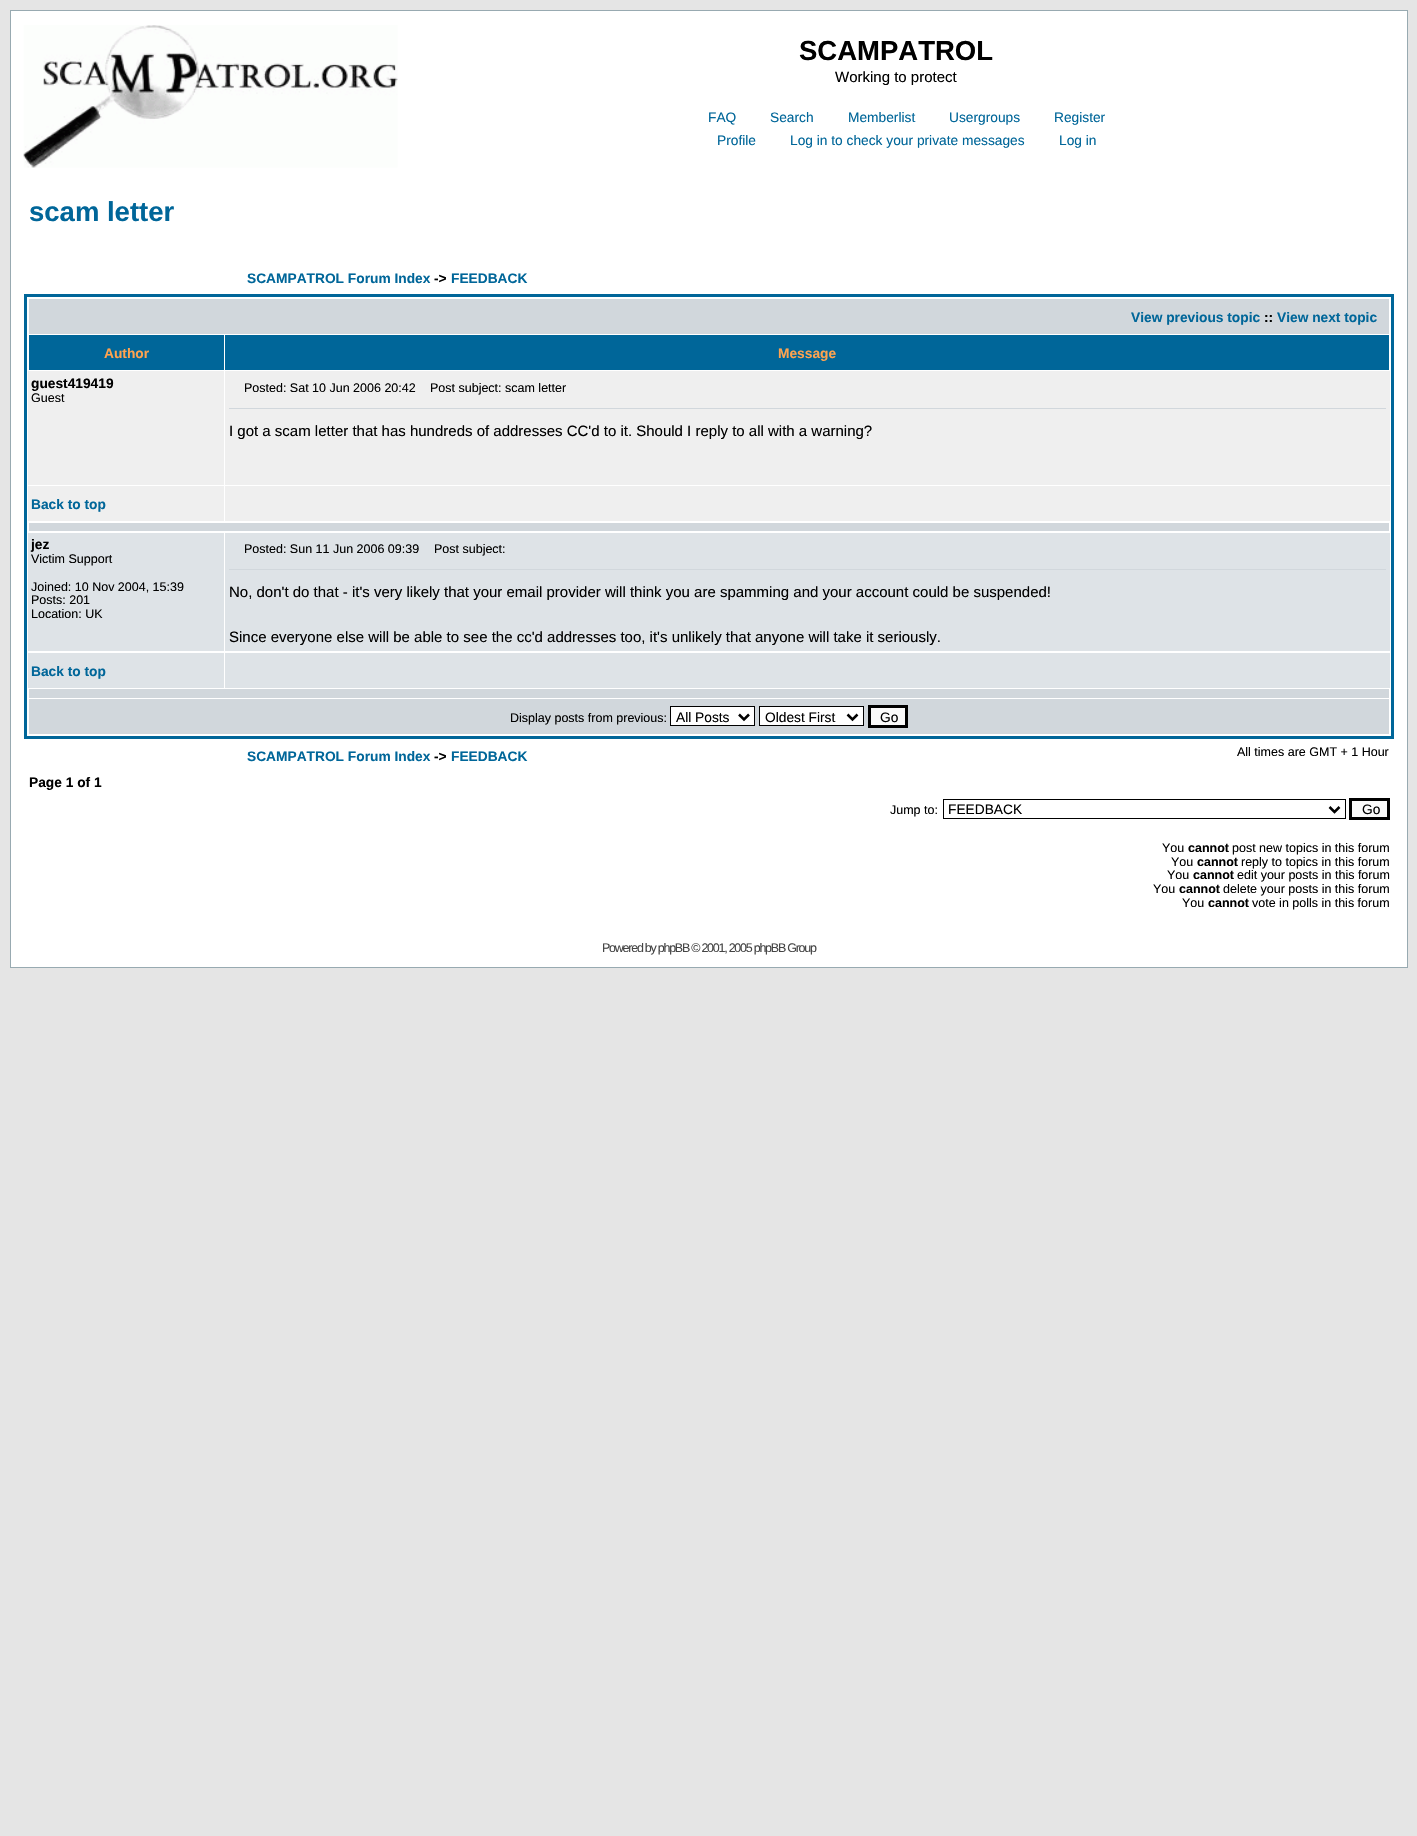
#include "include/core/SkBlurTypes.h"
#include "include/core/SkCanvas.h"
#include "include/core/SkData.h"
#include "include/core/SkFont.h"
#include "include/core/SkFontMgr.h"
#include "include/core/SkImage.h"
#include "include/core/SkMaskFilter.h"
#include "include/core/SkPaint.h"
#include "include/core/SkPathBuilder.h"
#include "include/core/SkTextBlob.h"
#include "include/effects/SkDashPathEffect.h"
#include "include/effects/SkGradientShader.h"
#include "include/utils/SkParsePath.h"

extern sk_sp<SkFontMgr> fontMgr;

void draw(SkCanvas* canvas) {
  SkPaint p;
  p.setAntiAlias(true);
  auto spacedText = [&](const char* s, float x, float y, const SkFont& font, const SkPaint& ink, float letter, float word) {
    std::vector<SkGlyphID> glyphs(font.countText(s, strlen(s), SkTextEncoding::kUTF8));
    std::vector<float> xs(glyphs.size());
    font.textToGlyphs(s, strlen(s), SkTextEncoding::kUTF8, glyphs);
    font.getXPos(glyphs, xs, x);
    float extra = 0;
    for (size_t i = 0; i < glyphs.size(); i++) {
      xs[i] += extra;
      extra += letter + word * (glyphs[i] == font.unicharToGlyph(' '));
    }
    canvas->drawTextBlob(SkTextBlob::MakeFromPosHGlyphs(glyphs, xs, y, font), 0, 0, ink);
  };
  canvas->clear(SkColorSetRGB(229, 229, 229));
  p.setColor(SK_ColorWHITE);
  canvas->drawRect(SkRect::MakeLTRB(10.5f, 10.5f, 1407.5f, 967.5f), p);
  p.setStyle(SkPaint::kStroke_Style);
  p.setStrokeWidth(1);
  p.setColor(SkColorSetRGB(152, 170, 177));
  canvas->drawRect(SkRect::MakeLTRB(10.5f, 10.5f, 1407.5f, 967.5f), p);
  canvas->drawImageRect(SkImages::DeferredFromEncodedData(SkData::MakeFromFileName("images/1.png")), SkRect::MakeLTRB(23, 25, 398, 168), SkSamplingOptions());
  p.setStrokeWidth(3);
  p.setColor(SkColorSetRGB(0, 102, 153));
  canvas->drawRect(SkRect::MakeLTRB(25.5f, 295.5f, 1392.5f, 737.5f), p);
  p.setStyle(SkPaint::kFill_Style);
  p.setColor(SkColorSetRGB(209, 215, 220));
  canvas->drawRect(SkRect::MakeLTRB(29, 299, 1389, 334), p);
  p.setColor(SkColorSetRGB(0, 102, 153));
  canvas->drawRect(SkRect::MakeLTRB(29, 335, 224, 370), p);
  canvas->drawRect(SkRect::MakeLTRB(225, 335, 1389, 370), p);
  p.setColor(SkColorSetRGB(239, 239, 239));
  canvas->drawRect(SkRect::MakeLTRB(28, 371, 224, 485), p);
  canvas->drawRect(SkRect::MakeLTRB(225, 371, 1390, 485), p);
  p.setColor(SkColorSetRGB(209, 215, 220));
  canvas->drawRect(SkRect::MakeLTRB(229, 408, 1386, 409), p);
  p.setColor(SkColorSetRGB(239, 239, 239));
  canvas->drawRect(SkRect::MakeLTRB(28, 486, 224, 521), p);
  canvas->drawRect(SkRect::MakeLTRB(225, 486, 1390, 521), p);
  p.setColor(SkColorSetRGB(209, 215, 220));
  canvas->drawRect(SkRect::MakeLTRB(29, 523, 1389, 531), p);
  p.setColor(SkColorSetRGB(222, 227, 231));
  canvas->drawRect(SkRect::MakeLTRB(28, 533, 224, 651), p);
  canvas->drawRect(SkRect::MakeLTRB(225, 533, 1390, 651), p);
  p.setColor(SkColorSetRGB(209, 215, 220));
  canvas->drawRect(SkRect::MakeLTRB(229, 569, 1386, 570), p);
  p.setColor(SkColorSetRGB(222, 227, 231));
  canvas->drawRect(SkRect::MakeLTRB(28, 653, 224, 688), p);
  canvas->drawRect(SkRect::MakeLTRB(225, 653, 1390, 688), p);
  p.setColor(SkColorSetRGB(209, 215, 220));
  canvas->drawRect(SkRect::MakeLTRB(29, 689, 1389, 698), p);
  canvas->drawRect(SkRect::MakeLTRB(29, 699, 1389, 734), p);
  p.setColor(SK_ColorWHITE);
  canvas->drawRect(SkRect::MakeLTRB(670.5f, 706.5f, 754.5f, 725.5f), p);
  p.setStyle(SkPaint::kStroke_Style);
  p.setStrokeWidth(1);
  p.setColor(SK_ColorBLACK);
  canvas->drawRect(SkRect::MakeLTRB(670.5f, 706.5f, 754.5f, 725.5f), p);
  p.setStrokeWidth(2.5f);
  canvas->drawPath(SkPathBuilder().moveTo(739, 714.5f).lineTo(744, 719.5f).lineTo(749, 714.5f).detach(), p);
  p.setStyle(SkPaint::kFill_Style);
  p.setColor(SK_ColorWHITE);
  canvas->drawRect(SkRect::MakeLTRB(759.5f, 706.5f, 863.5f, 725.5f), p);
  p.setStyle(SkPaint::kStroke_Style);
  p.setStrokeWidth(1);
  p.setColor(SK_ColorBLACK);
  canvas->drawRect(SkRect::MakeLTRB(759.5f, 706.5f, 863.5f, 725.5f), p);
  p.setStrokeWidth(2.5f);
  canvas->drawPath(SkPathBuilder().moveTo(847.5f, 714.5f).lineTo(852.5f, 719.5f).lineTo(857.5f, 714.5f).detach(), p);
  p.setStyle(SkPaint::kFill_Style);
  p.setColor(SkColorSetRGB(250, 250, 250));
  canvas->drawRect(SkRect::MakeLTRB(869.5f, 706.5f, 906.5f, 726.5f), p);
  p.setStyle(SkPaint::kStroke_Style);
  p.setStrokeWidth(3);
  p.setColor(SK_ColorBLACK);
  canvas->drawRect(SkRect::MakeLTRB(869.5f, 706.5f, 906.5f, 726.5f), p);
  p.setStrokeWidth(1);
  canvas->drawRect(SkRect::MakeLTRB(943.5f, 799.5f, 1345.5f, 818.5f), p);
  p.setStrokeWidth(2.5f);
  canvas->drawPath(SkPathBuilder().moveTo(1329.5f, 807).lineTo(1334.5f, 812).lineTo(1339.5f, 807).detach(), p);
  p.setStyle(SkPaint::kFill_Style);
  p.setColor(SkColorSetRGB(250, 250, 250));
  canvas->drawRect(SkRect::MakeLTRB(1350.5f, 799.5f, 1388.5f, 818.5f), p);
  p.setStyle(SkPaint::kStroke_Style);
  p.setStrokeWidth(3);
  p.setColor(SK_ColorBLACK);
  canvas->drawRect(SkRect::MakeLTRB(1350.5f, 799.5f, 1388.5f, 818.5f), p);
  SkFont font1(fontMgr->matchFamilyStyle("Liberation Sans", SkFontStyle::Bold()), 27.5f);
  font1.setSubpixel(true);
  p.setStyle(SkPaint::kFill_Style);
  canvas->drawString("SCAMPATROL", 799, 60, font1, p);
  SkFont font2(fontMgr->matchFamilyStyle("Liberation Sans", SkFontStyle::Normal()), 15);
  font2.setSubpixel(true);
  canvas->drawString("Working to protect", 835, 82, font2, p);
  SkFont font3(fontMgr->matchFamilyStyle("Liberation Sans", SkFontStyle::Normal()), 13.75f);
  font3.setSubpixel(true);
  p.setColor(SkColorSetRGB(0, 102, 153));
  canvas->drawString("FAQ", 708, 122, font3, p);
  canvas->drawString("Search", 770, 122, font3, p);
  canvas->drawString("Memberlist", 848, 122, font3, p);
  canvas->drawString("Usergroups", 949, 122, font3, p);
  canvas->drawString("Register", 1054, 122, font3, p);
  canvas->drawString("Profile", 717, 145, font3, p);
  canvas->drawString("Log in to check your private messages", 790, 145, font3, p);
  canvas->drawString("Log in", 1059, 145, font3, p);
  canvas->drawString("scam letter", 29, 221, font1, p);
  SkFont font4(fontMgr->matchFamilyStyle("Liberation Sans", SkFontStyle::Bold()), 13.75f);
  font4.setSubpixel(true);
  canvas->drawString("SCAMPATROL Forum Index", 247, 283, font4, p);
  p.setColor(SK_ColorBLACK);
  canvas->drawString("->", 434, 283, font4, p);
  p.setColor(SkColorSetRGB(0, 102, 153));
  canvas->drawString("FEEDBACK", 451, 283, font4, p);
  canvas->drawString("View previous topic", 1131, 322, font4, p);
  p.setColor(SK_ColorBLACK);
  canvas->drawString("::", 1264, 322, font4, p);
  p.setColor(SkColorSetRGB(0, 102, 153));
  canvas->drawString("View next topic", 1277, 322, font4, p);
  p.setColor(SkColorSetRGB(255, 163, 79));
  canvas->drawString("Author", 104, 358, font4, p);
  canvas->drawString("Message", 778, 358, font4, p);
  p.setColor(SK_ColorBLACK);
  canvas->drawString("guest419419", 31, 388, font4, p);
  SkFont font5(fontMgr->matchFamilyStyle("Liberation Sans", SkFontStyle::Normal()), 12.5f);
  font5.setSubpixel(true);
  canvas->drawString("Guest", 31, 402, font5, p);
  canvas->drawString("Posted: Sat 10 Jun 2006 20:42", 244, 392, font5, p);
  canvas->drawString("Post subject: scam letter", 430, 392, font5, p);
  canvas->drawString("I got a scam letter that has hundreds of addresses CC'd to it. Should I reply to all with a warning?", 229, 436, font2, p);
  p.setColor(SkColorSetRGB(0, 102, 153));
  canvas->drawString("Back to top", 31, 509, font4, p);
  p.setColor(SK_ColorBLACK);
  canvas->drawString("jez", 31, 549, font4, p);
  canvas->drawString("Victim Support", 31, 563, font5, p);
  canvas->drawString("Joined: 10 Nov 2004, 15:39", 31, 591, font5, p);
  canvas->drawString("Posts: 201", 31, 604, font5, p);
  canvas->drawString("Location: UK", 31, 618, font5, p);
  canvas->drawString("Posted: Sun 11 Jun 2006 09:39", 244, 553, font5, p);
  canvas->drawString("Post subject:", 434, 553, font5, p);
  canvas->drawString("No, don't do that - it's very likely that your email provider will think you are spamming and your account could be suspended!", 229, 597, font2, p);
  canvas->drawString("Since everyone else will be able to see the cc'd addresses too, it's unlikely that anyone will take it seriously.", 229, 642, font2, p);
  p.setColor(SkColorSetRGB(0, 102, 153));
  canvas->drawString("Back to top", 31, 676, font4, p);
  p.setColor(SK_ColorBLACK);
  canvas->drawString("Display posts from previous:", 510, 722, font5, p);
  canvas->drawString("All Posts", 676, 722, font3, p);
  canvas->drawString("Oldest First", 765, 722, font3, p);
  canvas->drawString("Go", 880, 722, font3, p);
  p.setColor(SkColorSetRGB(0, 102, 153));
  canvas->drawString("SCAMPATROL Forum Index", 247, 761, font4, p);
  p.setColor(SK_ColorBLACK);
  canvas->drawString("->", 434, 761, font4, p);
  p.setColor(SkColorSetRGB(0, 102, 153));
  canvas->drawString("FEEDBACK", 451, 761, font4, p);
  p.setColor(SK_ColorBLACK);
  canvas->drawString("All times are GMT + 1 Hour", 1237, 756, font5, p);
  canvas->drawString("Page 1 of 1", 29, 787, font4, p);
  canvas->drawString("Jump to:", 890, 814, font5, p);
  canvas->drawString("FEEDBACK", 948, 814, font3, p);
  canvas->drawString("Go", 1362, 814, font3, p);
  canvas->drawString("You", 1162, 852, font5, p);
  SkFont font6(fontMgr->matchFamilyStyle("Liberation Sans", SkFontStyle::Bold()), 12.5f);
  font6.setSubpixel(true);
  canvas->drawString("cannot", 1188, 852, font6, p);
  canvas->drawString("post new topics in this forum", 1232, 852, font5, p);
  canvas->drawString("You", 1171, 866, font5, p);
  canvas->drawString("cannot", 1197, 866, font6, p);
  canvas->drawString("reply to topics in this forum", 1241, 866, font5, p);
  canvas->drawString("You", 1167, 879, font5, p);
  canvas->drawString("cannot", 1193, 879, font6, p);
  canvas->drawString("edit your posts in this forum", 1237, 879, font5, p);
  canvas->drawString("You", 1153, 893, font5, p);
  canvas->drawString("cannot", 1179, 893, font6, p);
  canvas->drawString("delete your posts in this forum", 1223, 893, font5, p);
  canvas->drawString("You", 1182, 907, font5, p);
  canvas->drawString("cannot", 1208, 907, font6, p);
  canvas->drawString("vote in polls in this forum", 1252, 907, font5, p);
  p.setColor(SkColorSetRGB(68, 68, 68));
  spacedText("Powered by phpBB © 2001, 2005 phpBB Group", 602, 952, font5, p, -1.25f, 0);
}
